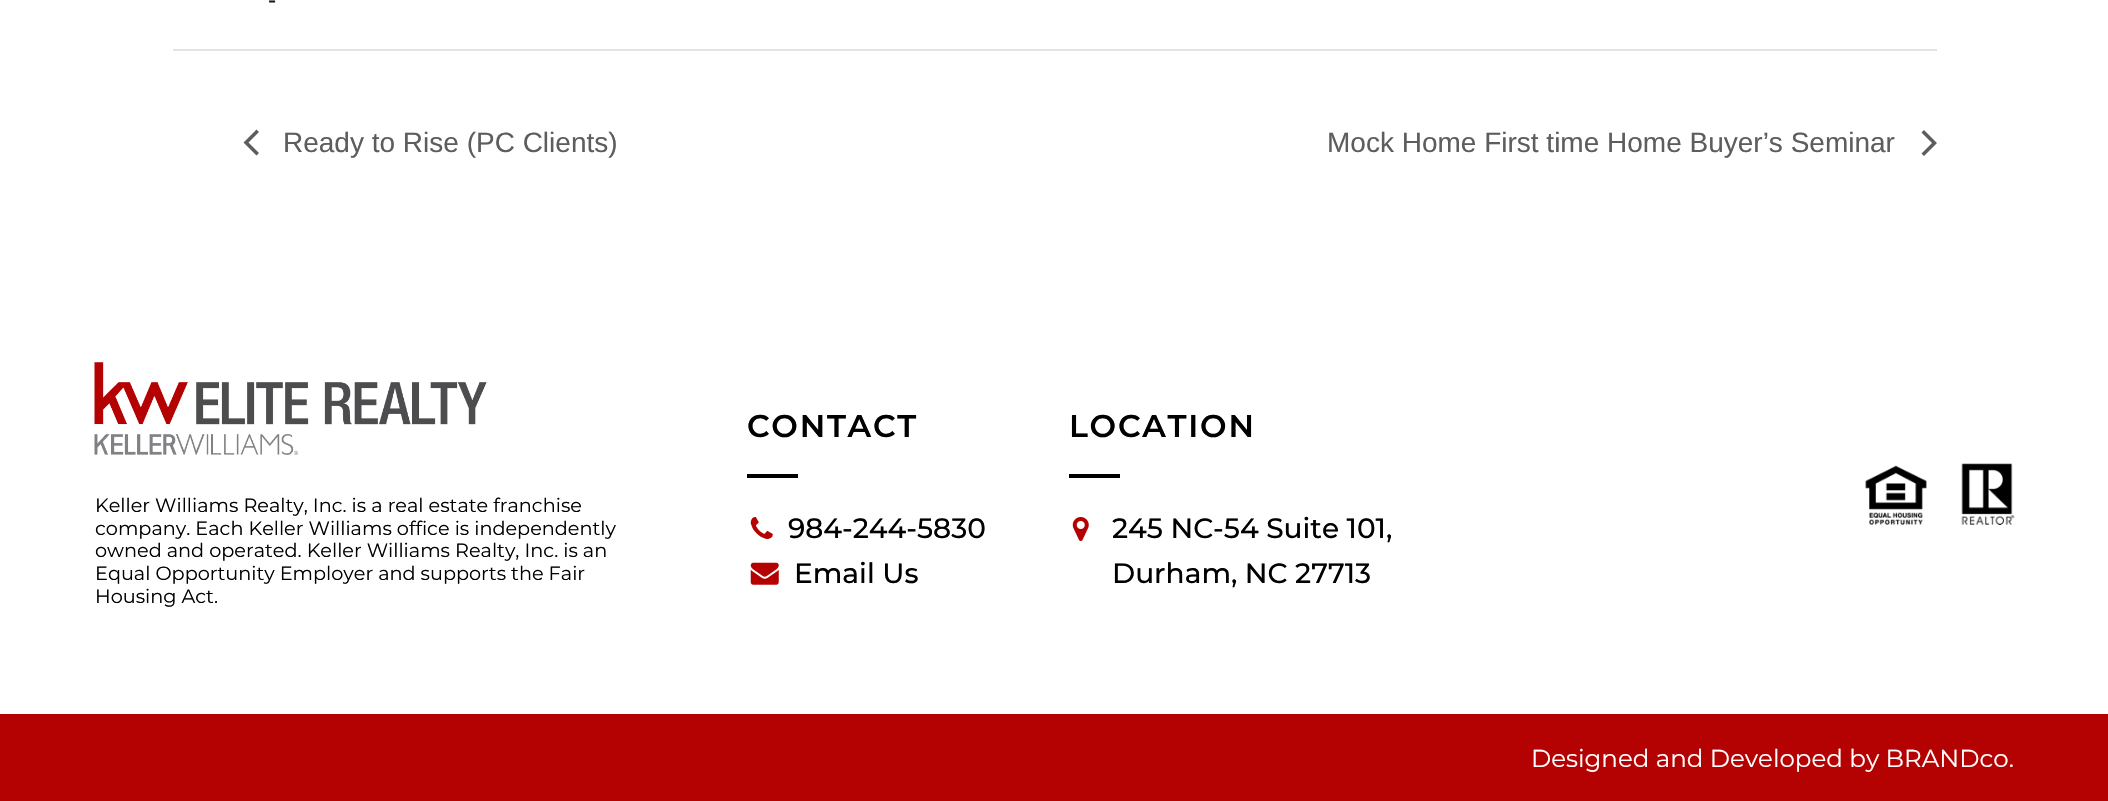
#include "include/core/SkBlurTypes.h"
#include "include/core/SkCanvas.h"
#include "include/core/SkData.h"
#include "include/core/SkFont.h"
#include "include/core/SkFontMgr.h"
#include "include/core/SkImage.h"
#include "include/core/SkMaskFilter.h"
#include "include/core/SkPaint.h"
#include "include/core/SkPathBuilder.h"
#include "include/core/SkTextBlob.h"
#include "include/effects/SkDashPathEffect.h"
#include "include/effects/SkGradientShader.h"
#include "include/utils/SkParsePath.h"

extern sk_sp<SkFontMgr> fontMgr;

void draw(SkCanvas* canvas) {
  SkPaint p;
  p.setAntiAlias(true);
  auto spacedText = [&](const char* s, float x, float y, const SkFont& font, const SkPaint& ink, float letter, float word) {
    std::vector<SkGlyphID> glyphs(font.countText(s, strlen(s), SkTextEncoding::kUTF8));
    std::vector<float> xs(glyphs.size());
    font.textToGlyphs(s, strlen(s), SkTextEncoding::kUTF8, glyphs);
    font.getXPos(glyphs, xs, x);
    float extra = 0;
    for (size_t i = 0; i < glyphs.size(); i++) {
      xs[i] += extra;
      extra += letter + word * (glyphs[i] == font.unicharToGlyph(' '));
    }
    canvas->drawTextBlob(SkTextBlob::MakeFromPosHGlyphs(glyphs, xs, y, font), 0, 0, ink);
  };
  canvas->clear(SK_ColorWHITE);
  p.setColor(SkColorSetRGB(228, 228, 228));
  canvas->drawRect(SkRect::MakeLTRB(173, 49, 1937, 51), p);
  p.setColor(SkColorSetRGB(93, 93, 93));
  canvas->drawPath(SkPathBuilder().moveTo(259, 153).lineTo(256.5f, 155.5f).lineTo(243.5f, 142.5f).lineTo(256.5f, 129.5f).lineTo(259, 132).lineTo(248.5f, 142.5f).close().detach(), p);
  canvas->drawPath(SkPathBuilder().moveTo(1921.5f, 132.5f).lineTo(1924, 130).lineTo(1937, 143).lineTo(1924, 156).lineTo(1921.5f, 153.5f).lineTo(1932, 143).close().detach(), p);
  canvas->drawImageRect(SkImages::DeferredFromEncodedData(SkData::MakeFromFileName("images/1.png")), SkRect::MakeLTRB(94, 362, 487, 455), SkSamplingOptions());
  p.setColor(SK_ColorBLACK);
  canvas->drawRect(SkRect::MakeLTRB(747, 474, 798, 478), p);
  canvas->drawImageRect(SkImages::DeferredFromEncodedData(SkData::MakeFromFileName("images/2.png")), SkRect::MakeLTRB(750, 517, 773, 539), SkSamplingOptions());
  canvas->drawImageRect(SkImages::DeferredFromEncodedData(SkData::MakeFromFileName("images/3.png")), SkRect::MakeLTRB(750, 562, 779, 585), SkSamplingOptions());
  canvas->drawRect(SkRect::MakeLTRB(1069, 474, 1120, 478), p);
  canvas->drawImageRect(SkImages::DeferredFromEncodedData(SkData::MakeFromFileName("images/4.png")), SkRect::MakeLTRB(1072, 517, 1089, 541), SkSamplingOptions());
  canvas->drawImageRect(SkImages::DeferredFromEncodedData(SkData::MakeFromFileName("images/5.png")), SkRect::MakeLTRB(1865, 465, 1927, 525), SkSamplingOptions());
  canvas->drawImageRect(SkImages::DeferredFromEncodedData(SkData::MakeFromFileName("images/6.png")), SkRect::MakeLTRB(1961, 463, 2015, 525), SkSamplingOptions());
  p.setColor(SkColorSetRGB(180, 1, 1));
  canvas->drawRect(SkRect::MakeLTRB(0, 714, 2108, 801), p);
  SkFont font1(fontMgr->matchFamilyStyle("Liberation Sans", SkFontStyle::Normal()), 24.5f);
  font1.setSubpixel(true);
  p.setColor(SkColorSetRGB(20, 24, 39));
  canvas->drawString("-", 268, 8, font1, p);
  SkFont font2(fontMgr->matchFamilyStyle("Liberation Sans", SkFontStyle::Normal()), 28);
  font2.setSubpixel(true);
  p.setColor(SkColorSetRGB(93, 93, 93));
  canvas->drawString("Ready to Rise (PC Clients)", 283, 152, font2, p);
  canvas->drawString("Mock Home First time Home Buyer’s Seminar", 1327, 152, font2, p);
  SkFont font3(fontMgr->matchFamilyStyle("Montserrat", SkFontStyle::Normal()), 19.25f);
  font3.setSubpixel(true);
  p.setColor(SK_ColorBLACK);
  canvas->drawString("Keller Williams Realty, Inc. is a real estate franchise", 95, 512, font3, p);
  canvas->drawString("company. Each Keller Williams office is independently", 95, 535, font3, p);
  canvas->drawString("owned and operated. Keller Williams Realty, Inc. is an", 95, 557, font3, p);
  canvas->drawString("Equal Opportunity Employer and supports the Fair", 95, 580, font3, p);
  canvas->drawString("Housing Act.", 95, 603, font3, p);
  SkFont font4(fontMgr->matchFamilyStyle("Montserrat", SkFontStyle(600, SkFontStyle::kNormal_Width, SkFontStyle::kUpright_Slant)), 31.5f);
  font4.setSubpixel(true);
  spacedText("CONTACT", 747, 437, font4, p, 1.75f, 0);
  SkFont font5(fontMgr->matchFamilyStyle("Montserrat", SkFontStyle(500, SkFontStyle::kNormal_Width, SkFontStyle::kUpright_Slant)), 28);
  font5.setSubpixel(true);
  canvas->drawString("984-244-5830", 788, 538, font5, p);
  canvas->drawString("Email Us", 794, 583, font5, p);
  spacedText("LOCATION", 1069, 437, font4, p, 1.75f, 0);
  canvas->drawString("245 NC-54 Suite 101,", 1112, 538, font5, p);
  canvas->drawString("Durham, NC 27713", 1112, 583, font5, p);
  SkFont font6(fontMgr->matchFamilyStyle("Montserrat", SkFontStyle::Normal()), 24.5f);
  font6.setSubpixel(true);
  p.setColor(SK_ColorWHITE);
  canvas->drawString("Designed and Developed by BRANDco.", 1531, 767, font6, p);
}
